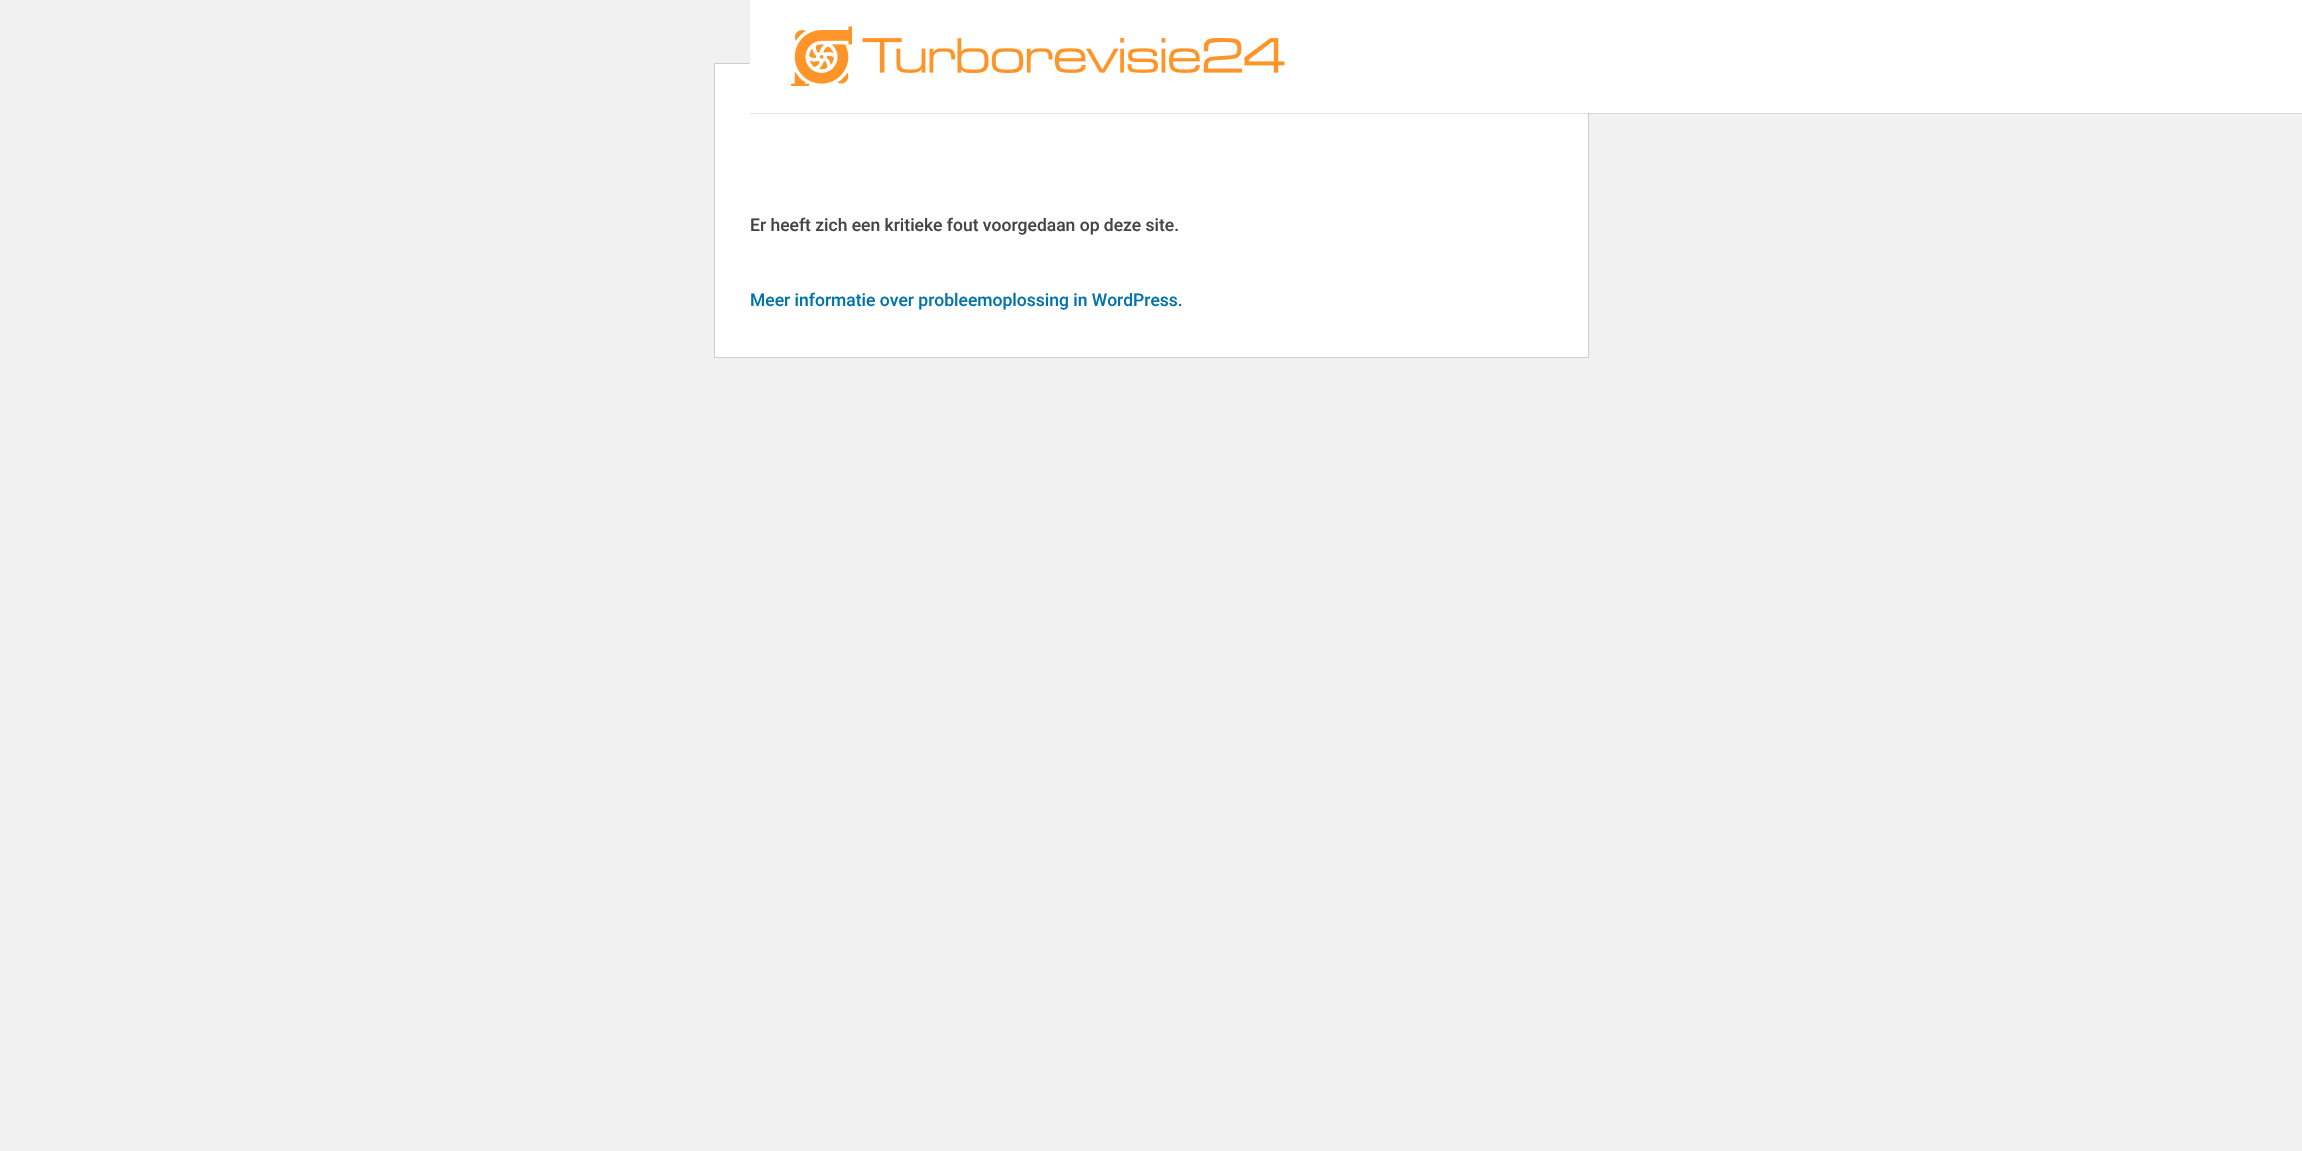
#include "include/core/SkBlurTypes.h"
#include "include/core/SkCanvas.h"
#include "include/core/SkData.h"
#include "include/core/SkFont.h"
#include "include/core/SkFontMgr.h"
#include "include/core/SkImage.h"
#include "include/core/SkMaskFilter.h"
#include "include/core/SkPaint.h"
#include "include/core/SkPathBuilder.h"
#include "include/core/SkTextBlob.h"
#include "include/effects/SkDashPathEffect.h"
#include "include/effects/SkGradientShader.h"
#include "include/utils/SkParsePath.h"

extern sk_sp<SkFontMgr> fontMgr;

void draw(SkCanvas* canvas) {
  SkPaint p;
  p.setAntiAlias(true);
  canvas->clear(SkColorSetRGB(241, 241, 241));
  p.setColor(SK_ColorWHITE);
  canvas->drawRect(SkRect::MakeLTRB(714.5f, 63.5f, 1588.5f, 357.5f), p);
  p.setStyle(SkPaint::kStroke_Style);
  p.setStrokeWidth(1);
  p.setColor(SkColorSetRGB(204, 208, 212));
  canvas->drawRect(SkRect::MakeLTRB(714.5f, 63.5f, 1588.5f, 357.5f), p);
  p.setStyle(SkPaint::kFill_Style);
  p.setColor(SkColorSetARGB(26, 0, 0, 0));
  canvas->drawPath(SkPathBuilder().moveTo(750, 112).lineTo(750, 114).lineTo(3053, 114).lineTo(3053, 1).lineTo(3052, 1).lineTo(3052, 112).close().detach(), p);
  p.setColor(SK_ColorWHITE);
  canvas->drawRect(SkRect::MakeLTRB(750, 0, 2302, 113), p);
  canvas->drawImageRect(SkImages::DeferredFromEncodedData(SkData::MakeFromFileName("images/1.png")), SkRect::MakeLTRB(791, 26, 1285, 86), SkSamplingOptions());
  SkFont font1(fontMgr->matchFamilyStyle("Roboto", SkFontStyle(500, SkFontStyle::kNormal_Width, SkFontStyle::kUpright_Slant)), 17.5f);
  font1.setSubpixel(true);
  p.setColor(SkColorSetRGB(68, 68, 68));
  canvas->drawString("Er heeft zich een kritieke fout voorgedaan op deze site.", 750, 231, font1, p);
  p.setColor(SkColorSetRGB(0, 115, 170));
  canvas->drawString("Meer informatie over probleemoplossing in WordPress.", 750, 306, font1, p);
}
